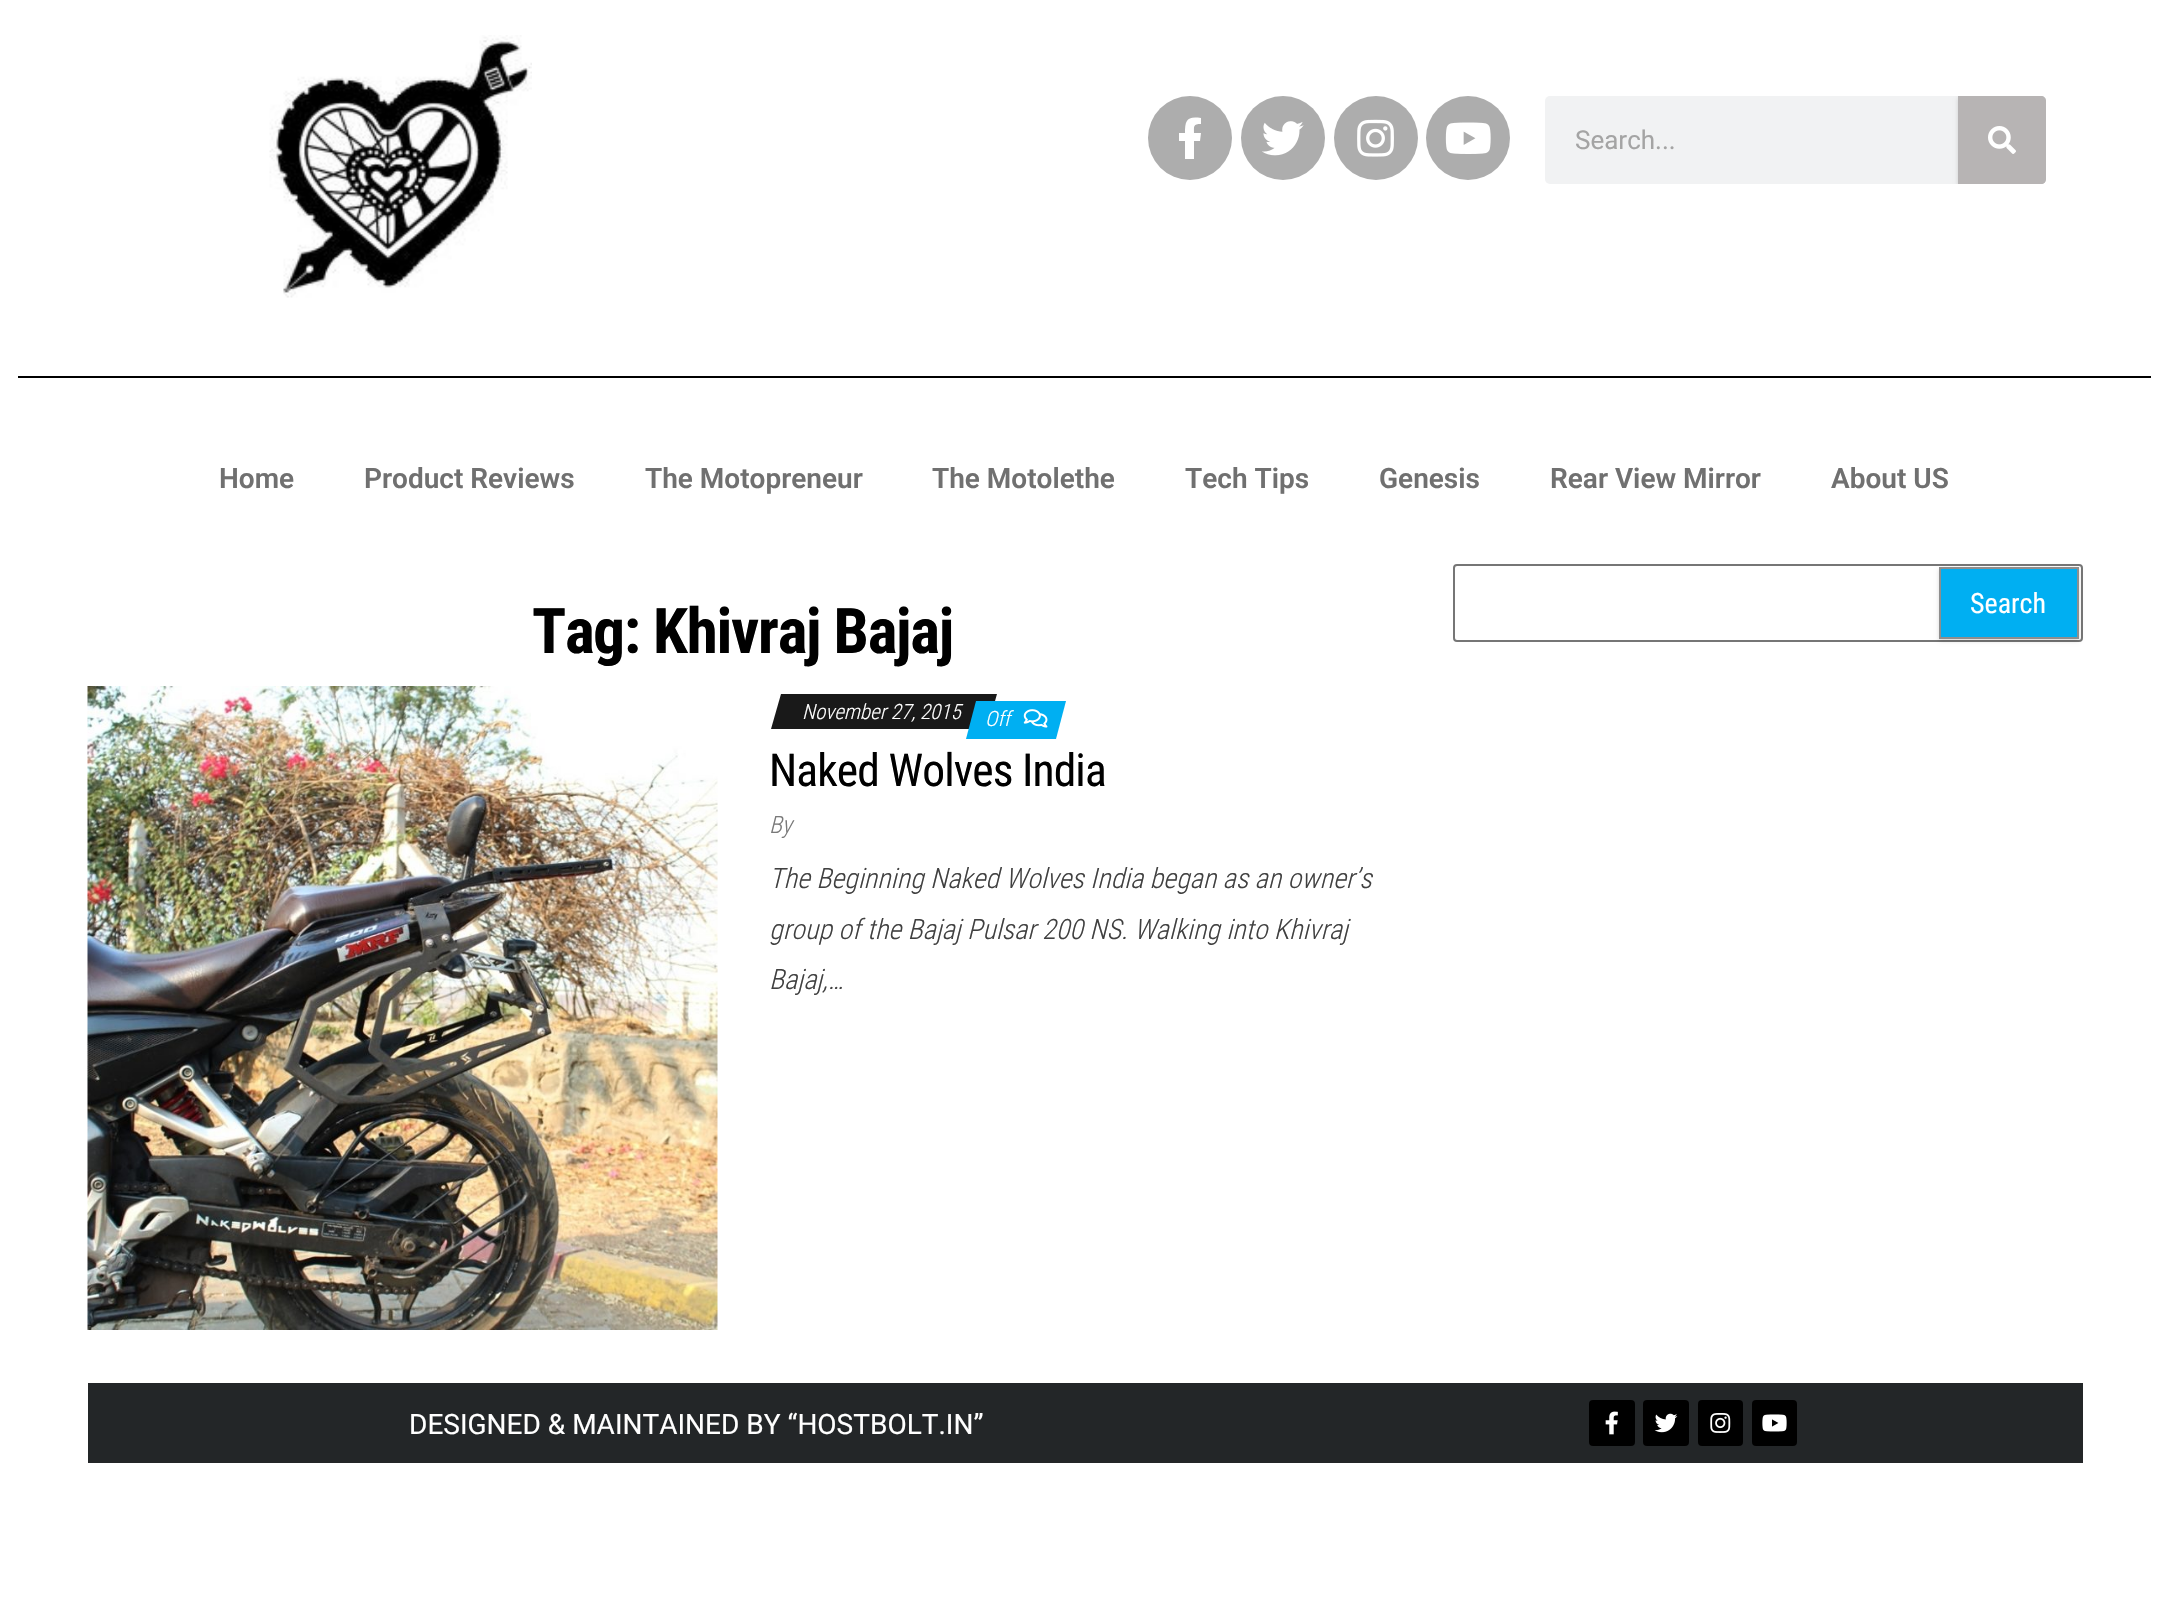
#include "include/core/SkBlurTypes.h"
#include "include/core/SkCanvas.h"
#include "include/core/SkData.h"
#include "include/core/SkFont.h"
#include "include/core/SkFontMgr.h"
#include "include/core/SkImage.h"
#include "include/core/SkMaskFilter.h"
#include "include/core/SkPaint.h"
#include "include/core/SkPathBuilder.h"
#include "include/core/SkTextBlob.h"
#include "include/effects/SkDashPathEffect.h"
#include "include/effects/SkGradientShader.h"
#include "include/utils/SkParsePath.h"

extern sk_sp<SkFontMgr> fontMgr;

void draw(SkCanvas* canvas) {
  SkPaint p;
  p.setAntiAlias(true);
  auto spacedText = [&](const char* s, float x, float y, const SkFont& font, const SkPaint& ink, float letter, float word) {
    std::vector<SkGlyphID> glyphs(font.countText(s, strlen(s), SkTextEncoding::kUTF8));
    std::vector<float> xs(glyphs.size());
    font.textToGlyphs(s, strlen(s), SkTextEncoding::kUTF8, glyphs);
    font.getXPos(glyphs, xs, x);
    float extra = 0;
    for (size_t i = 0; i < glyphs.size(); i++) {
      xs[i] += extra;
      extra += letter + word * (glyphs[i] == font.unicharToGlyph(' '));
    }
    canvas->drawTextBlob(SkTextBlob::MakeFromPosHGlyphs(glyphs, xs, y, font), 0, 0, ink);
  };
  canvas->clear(SK_ColorWHITE);
  canvas->drawImageRect(SkImages::DeferredFromEncodedData(SkData::MakeFromFileName("images/1.png")), SkRect::MakeLTRB(269, 35, 532, 298), SkSamplingOptions());
  p.setColor(SkColorSetRGB(173, 173, 173));
  canvas->drawCircle(1190, 138, 42, p);
  p.setColor(SK_ColorWHITE);
  canvas->drawPath(SkPathBuilder().moveTo(1200, 141).lineTo(1194, 141).lineTo(1194, 159).lineTo(1185, 159).lineTo(1185, 141).lineTo(1179, 141).lineTo(1179, 133).lineTo(1185, 133).cubicTo(1185, 120, 1187, 116, 1201, 118).lineTo(1201, 124).cubicTo(1193, 124, 1194, 126, 1194, 133).lineTo(1201, 133).close().detach(), p);
  p.setColor(SkColorSetRGB(173, 173, 173));
  canvas->drawCircle(1283, 138, 42, p);
  canvas->drawImageRect(SkImages::DeferredFromEncodedData(SkData::MakeFromFileName("images/2.png")), SkRect::MakeLTRB(1262, 121, 1304, 156), SkSamplingOptions());
  canvas->drawCircle(1376, 138, 42, p);
  canvas->drawImageRect(SkImages::DeferredFromEncodedData(SkData::MakeFromFileName("images/3.png")), SkRect::MakeLTRB(1357, 119, 1394, 157), SkSamplingOptions());
  canvas->drawCircle(1468, 138, 42, p);
  canvas->drawImageRect(SkImages::DeferredFromEncodedData(SkData::MakeFromFileName("images/4.png")), SkRect::MakeLTRB(1445, 122, 1491, 154), SkSamplingOptions());
  p.setColor(SkColorSetRGB(241, 242, 243));
  canvas->drawRoundRect(SkRect::MakeLTRB(1545, 96, 2046, 184), 5, 5, p);
  canvas->save();
  canvas->clipPath(SkPathBuilder().moveTo(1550, 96).lineTo(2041, 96).cubicTo(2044, 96, 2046, 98, 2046, 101).lineTo(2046, 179).cubicTo(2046, 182, 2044, 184, 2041, 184).lineTo(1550, 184).cubicTo(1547, 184, 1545, 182, 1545, 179).lineTo(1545, 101).cubicTo(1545, 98, 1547, 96, 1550, 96).close().detach(), true);
  p.setColor(SkColorSetARGB(38, 0, 0, 0));
  p.setMaskFilter(SkMaskFilter::MakeBlur(kNormal_SkBlurStyle, 2));
  canvas->drawRect(SkRect::MakeLTRB(1958, 98, 2046, 186), p);
  p.setMaskFilter(nullptr);
  canvas->restore();
  p.setColor(SkColorSetRGB(183, 180, 180));
  canvas->drawPath(SkPathBuilder().moveTo(1958, 96).lineTo(2041, 96).cubicTo(2044, 96, 2046, 98, 2046, 101).lineTo(2046, 179).cubicTo(2046, 182, 2044, 184, 2041, 184).lineTo(1958, 184).close().detach(), p);
  canvas->drawImageRect(SkImages::DeferredFromEncodedData(SkData::MakeFromFileName("images/5.png")), SkRect::MakeLTRB(1988, 126, 2016, 154), SkSamplingOptions());
  p.setColor(SK_ColorBLACK);
  canvas->drawRect(SkRect::MakeLTRB(18, 376, 2151, 378), p);
  canvas->drawImageRect(SkImages::DeferredFromEncodedData(SkData::MakeFromFileName("images/6.png")), SkRect::MakeLTRB(87, 686, 718, 1330), SkSamplingOptions());
  p.setColor(SkColorSetRGB(25, 25, 25));
  canvas->drawPath(SkPathBuilder().moveTo(781, 694).lineTo(997, 694).lineTo(987, 729).lineTo(771, 729).close().detach(), p);
  p.setColor(SkColorSetRGB(0, 175, 242));
  canvas->drawPath(SkPathBuilder().moveTo(976, 701).lineTo(1066, 701).lineTo(1056, 739).lineTo(966, 739).close().detach(), p);
  canvas->drawImageRect(SkImages::DeferredFromEncodedData(SkData::MakeFromFileName("images/7.png")), SkRect::MakeLTRB(1023, 709, 1048, 728), SkSamplingOptions());
  p.setStyle(SkPaint::kStroke_Style);
  p.setStrokeWidth(2);
  p.setColor(SkColorSetRGB(118, 118, 118));
  canvas->drawRoundRect(SkRect::MakeLTRB(1454, 565, 2082, 641), 3, 3, p);
  p.setStyle(SkPaint::kFill_Style);
  p.setColor(SkColorSetARGB(38, 0, 0, 0));
  p.setMaskFilter(SkMaskFilter::MakeBlur(kNormal_SkBlurStyle, 2));
  canvas->drawRect(SkRect::MakeLTRB(1939, 569, 2079, 641), p);
  p.setMaskFilter(nullptr);
  p.setColor(SkColorSetRGB(0, 175, 242));
  canvas->drawRect(SkRect::MakeLTRB(1940, 568, 2078, 638), p);
  p.setStyle(SkPaint::kStroke_Style);
  p.setColor(SkColorSetRGB(142, 142, 142));
  canvas->drawRect(SkRect::MakeLTRB(1940, 568, 2078, 638), p);
  p.setStyle(SkPaint::kFill_Style);
  p.setColor(SkColorSetRGB(35, 38, 40));
  canvas->drawRect(SkRect::MakeLTRB(88, 1383, 2083, 1463), p);
  p.setColor(SK_ColorBLACK);
  canvas->drawRoundRect(SkRect::MakeLTRB(1589, 1400, 1635, 1446), 4, 4, p);
  canvas->drawImageRect(SkImages::DeferredFromEncodedData(SkData::MakeFromFileName("images/8.png")), SkRect::MakeLTRB(1605, 1411, 1618, 1435), SkSamplingOptions());
  canvas->drawRoundRect(SkRect::MakeLTRB(1643, 1400, 1689, 1446), 4, 4, p);
  canvas->drawImageRect(SkImages::DeferredFromEncodedData(SkData::MakeFromFileName("images/9.png")), SkRect::MakeLTRB(1654, 1413, 1678, 1433), SkSamplingOptions());
  canvas->drawRoundRect(SkRect::MakeLTRB(1698, 1400, 1743, 1446), 4, 4, p);
  canvas->drawImageRect(SkImages::DeferredFromEncodedData(SkData::MakeFromFileName("images/10.png")), SkRect::MakeLTRB(1710, 1413, 1731, 1433), SkSamplingOptions());
  canvas->drawRoundRect(SkRect::MakeLTRB(1752, 1400, 1797, 1446), 4, 4, p);
  canvas->drawImageRect(SkImages::DeferredFromEncodedData(SkData::MakeFromFileName("images/11.png")), SkRect::MakeLTRB(1762, 1414, 1787, 1432), SkSamplingOptions());
  SkFont font1(fontMgr->matchFamilyStyle("Roboto", SkFontStyle::Normal()), 26);
  font1.setSubpixel(true);
  p.setColor(SkColorSetRGB(164, 164, 164));
  canvas->drawString("Search...", 1575, 149, font1, p);
  SkFont font2(fontMgr->matchFamilyStyle("Roboto", SkFontStyle(600, SkFontStyle::kNormal_Width, SkFontStyle::kUpright_Slant)), 28);
  font2.setSubpixel(true);
  p.setColor(SkColorSetRGB(112, 112, 112));
  canvas->drawString("Home", 219, 488, font2, p);
  canvas->drawString("Product Reviews", 364, 488, font2, p);
  canvas->drawString("The Motopreneur", 645, 488, font2, p);
  canvas->drawString("The Motolethe", 932, 488, font2, p);
  canvas->drawString("Tech Tips", 1185, 488, font2, p);
  canvas->drawString("Genesis", 1379, 488, font2, p);
  canvas->drawString("Rear View Mirror", 1550, 488, font2, p);
  canvas->drawString("About US", 1831, 488, font2, p);
  SkFont font3(fontMgr->matchFamilyStyle("Roboto Condensed", SkFontStyle::Bold()), 63);
  font3.setSubpixel(true);
  p.setColor(SK_ColorBLACK);
  spacedText("Tag: Khivraj Bajaj", 532, 653, font3, p, -1.25f, 0);
  SkFont font4(fontMgr->matchFamilyStyle("Roboto Condensed", SkFontStyle(300, SkFontStyle::kNormal_Width, SkFontStyle::kItalic_Slant)), 21);
  font4.setSubpixel(true);
  p.setColor(SK_ColorWHITE);
  canvas->drawString("November 27, 2015", 802, 719, font4, p);
  canvas->drawString("Off", 985, 726, font4, p);
  SkFont font5(fontMgr->matchFamilyStyle("Roboto Condensed", SkFontStyle::Normal()), 45.5f);
  font5.setSubpixel(true);
  p.setColor(SK_ColorBLACK);
  spacedText("Naked Wolves India", 769, 786, font5, p, -0.9f, 0);
  SkFont font6(fontMgr->matchFamilyStyle("Roboto Condensed", SkFontStyle(300, SkFontStyle::kNormal_Width, SkFontStyle::kItalic_Slant)), 24);
  font6.setSubpixel(true);
  p.setColor(SkColorSetRGB(121, 121, 121));
  canvas->drawString("By", 769, 833, font6, p);
  SkFont font7(fontMgr->matchFamilyStyle("Roboto Condensed", SkFontStyle(300, SkFontStyle::kNormal_Width, SkFontStyle::kItalic_Slant)), 28);
  font7.setSubpixel(true);
  p.setColor(SkColorSetRGB(64, 64, 64));
  canvas->drawString("The Beginning Naked Wolves India began as an owner’s", 769, 888, font7, p);
  canvas->drawString("group of the Bajaj Pulsar 200 NS. Walking into Khivraj", 769, 939, font7, p);
  canvas->drawString("Bajaj,…", 769, 989, font7, p);
  SkFont font8(fontMgr->matchFamilyStyle("Roboto Condensed", SkFontStyle::Normal()), 28);
  font8.setSubpixel(true);
  p.setColor(SK_ColorWHITE);
  canvas->drawString("Search", 1970, 613, font8, p);
  SkFont font9(fontMgr->matchFamilyStyle("Roboto", SkFontStyle::Normal()), 28);
  font9.setSubpixel(true);
  canvas->drawString("DESIGNED & MAINTAINED BY “HOSTBOLT.IN”", 409, 1434, font9, p);
}
